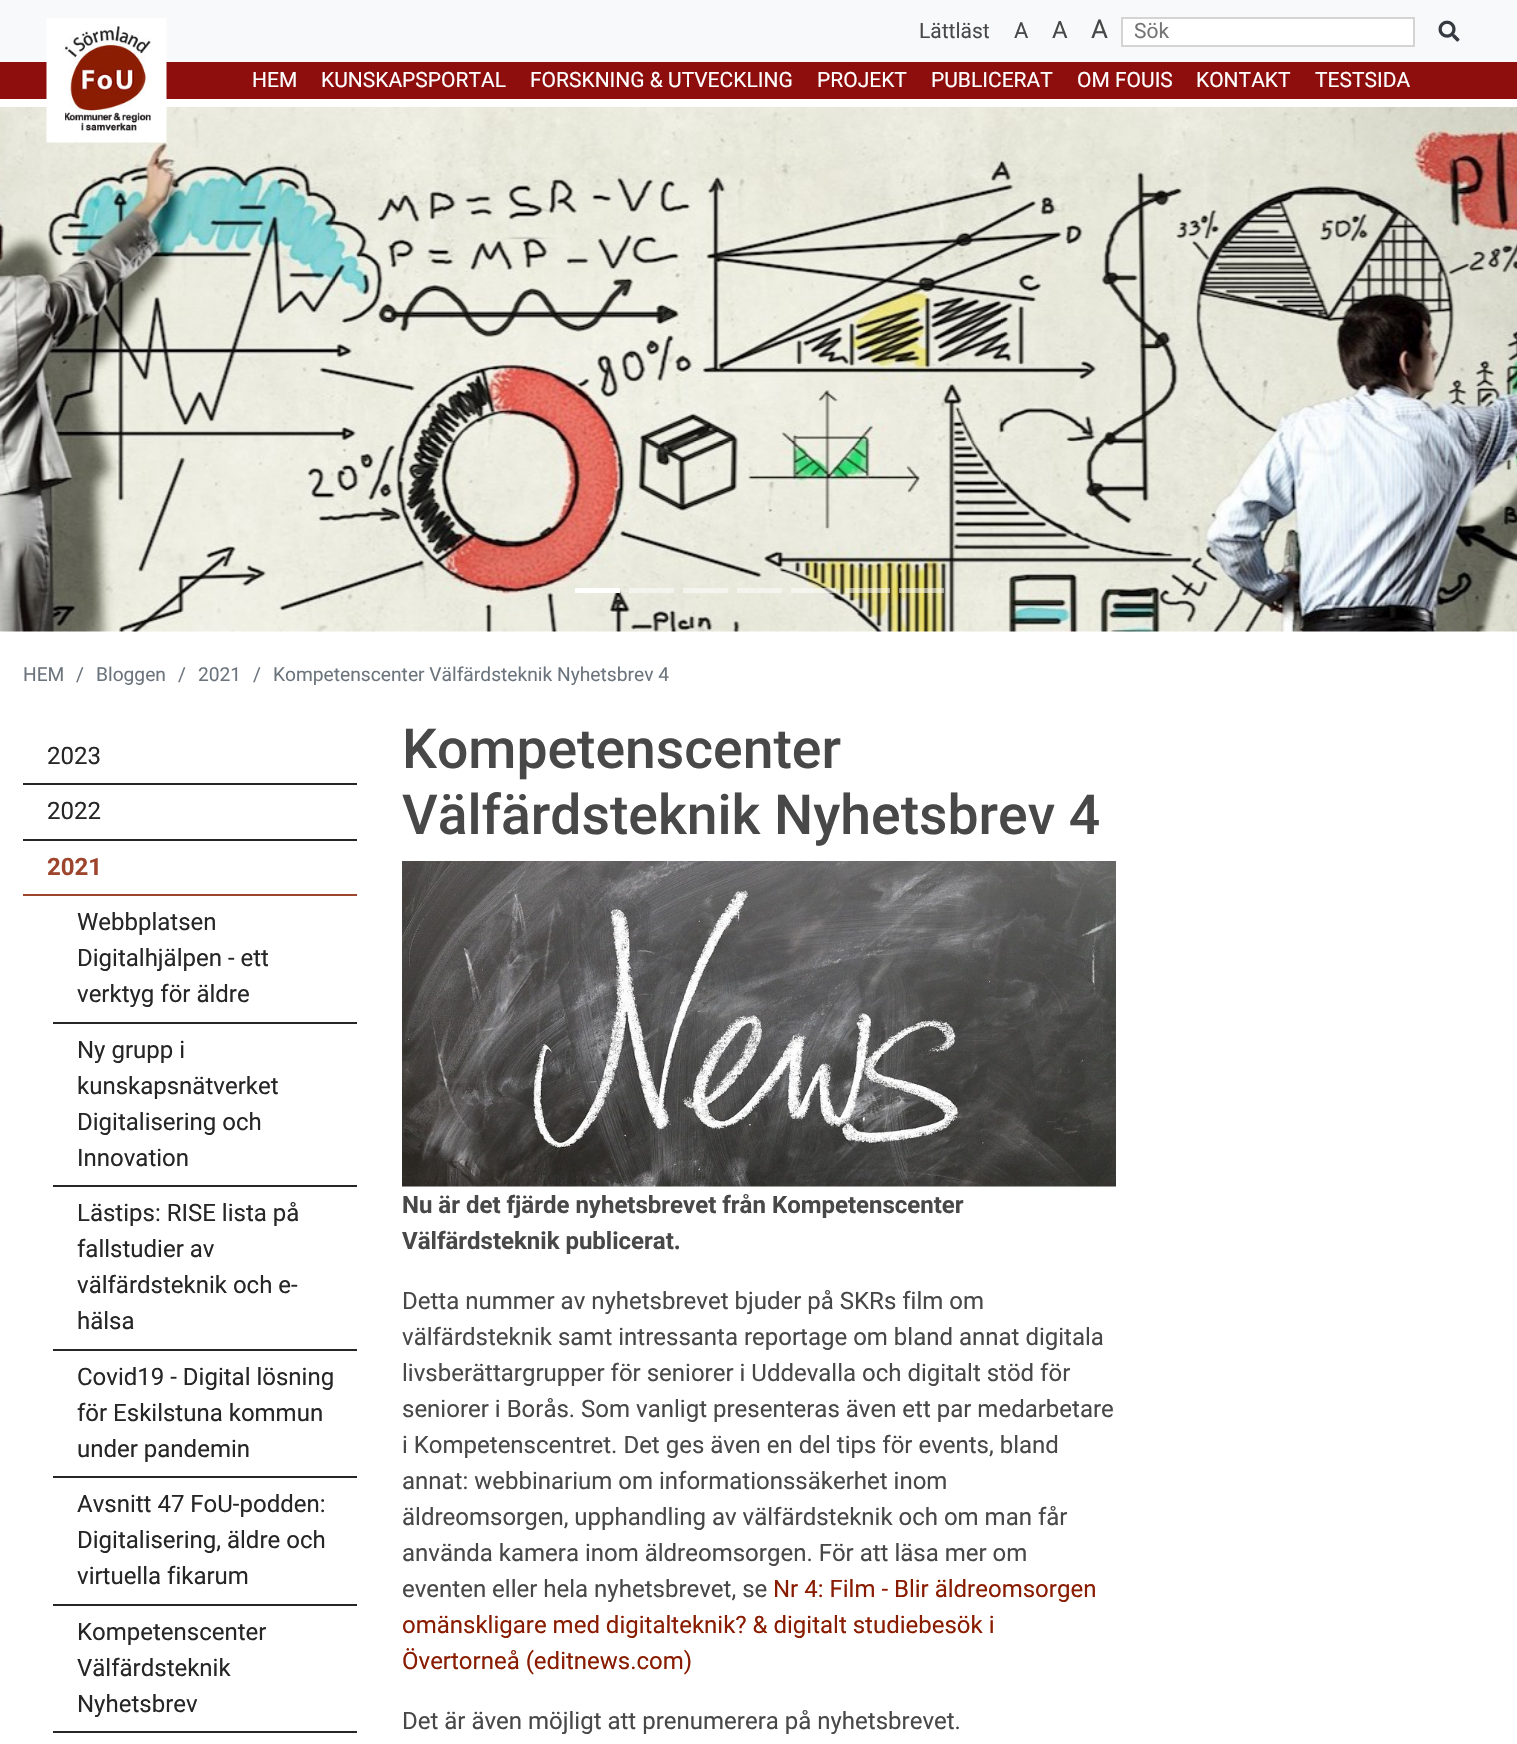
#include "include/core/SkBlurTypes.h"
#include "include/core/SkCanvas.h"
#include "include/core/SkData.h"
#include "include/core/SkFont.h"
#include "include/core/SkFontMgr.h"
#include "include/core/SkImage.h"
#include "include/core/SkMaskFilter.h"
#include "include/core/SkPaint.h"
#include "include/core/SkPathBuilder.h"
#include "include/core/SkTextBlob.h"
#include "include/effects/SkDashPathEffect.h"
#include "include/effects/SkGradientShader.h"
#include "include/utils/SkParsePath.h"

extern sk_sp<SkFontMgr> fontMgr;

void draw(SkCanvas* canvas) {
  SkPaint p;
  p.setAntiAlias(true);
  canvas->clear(SK_ColorWHITE);
  p.setColor(SkColorSetRGB(248, 249, 250));
  canvas->drawRect(SkRect::MakeLTRB(0, 0, 1517, 62), p);
  p.setColor(SK_ColorWHITE);
  canvas->drawRect(SkRect::MakeLTRB(1122, 18, 1414, 46), p);
  p.setStyle(SkPaint::kStroke_Style);
  p.setStrokeWidth(2);
  p.setColor(SkColorSetRGB(212, 212, 212));
  canvas->drawRect(SkRect::MakeLTRB(1122, 18, 1414, 46), p);
  canvas->drawImageRect(SkImages::DeferredFromEncodedData(SkData::MakeFromFileName("images/1.png")), SkRect::MakeLTRB(1438, 20, 1460, 42), SkSamplingOptions());
  p.setStyle(SkPaint::kFill_Style);
  p.setColor(SkColorSetRGB(142, 14, 14));
  canvas->drawRect(SkRect::MakeLTRB(0, 62, 1517, 99), p);
  canvas->drawImageRect(SkImages::DeferredFromEncodedData(SkData::MakeFromFileName("images/3.png")), SkRect::MakeLTRB(0, 107, 1517, 632), SkSamplingOptions());
  canvas->drawImageRect(SkImages::DeferredFromEncodedData(SkData::MakeFromFileName("images/2.png")), SkRect::MakeLTRB(46, 18, 167, 143), SkSamplingOptions());
  p.setColor(SK_ColorWHITE);
  canvas->drawRect(SkRect::MakeLTRB(575, 588, 620, 593), p);
  p.setColor(SkColorSetARGB(128, 255, 255, 255));
  canvas->drawRect(SkRect::MakeLTRB(629, 588, 674, 593), p);
  canvas->drawRect(SkRect::MakeLTRB(683, 588, 728, 593), p);
  canvas->drawRect(SkRect::MakeLTRB(737, 588, 782, 593), p);
  canvas->drawRect(SkRect::MakeLTRB(791, 588, 836, 593), p);
  canvas->drawRect(SkRect::MakeLTRB(845, 588, 890, 593), p);
  canvas->drawRect(SkRect::MakeLTRB(899, 588, 944, 593), p);
  p.setColor(SkColorSetRGB(38, 38, 38));
  canvas->drawRect(SkRect::MakeLTRB(23, 783, 357, 785), p);
  canvas->drawRect(SkRect::MakeLTRB(23, 839, 357, 841), p);
  p.setColor(SkColorSetRGB(158, 69, 46));
  canvas->drawRect(SkRect::MakeLTRB(23, 894, 357, 896), p);
  p.setColor(SkColorSetRGB(38, 38, 38));
  canvas->drawRect(SkRect::MakeLTRB(53, 1022, 357, 1024), p);
  canvas->drawRect(SkRect::MakeLTRB(53, 1185, 357, 1187), p);
  canvas->drawRect(SkRect::MakeLTRB(53, 1349, 357, 1351), p);
  canvas->drawRect(SkRect::MakeLTRB(53, 1476, 357, 1478), p);
  canvas->drawRect(SkRect::MakeLTRB(53, 1604, 357, 1606), p);
  canvas->drawRect(SkRect::MakeLTRB(53, 1731, 357, 1733), p);
  canvas->drawImageRect(SkImages::DeferredFromEncodedData(SkData::MakeFromFileName("images/4.png")), SkRect::MakeLTRB(402, 861, 1116, 1187), SkSamplingOptions());
  SkFont font1(fontMgr->matchFamilyStyle("Roboto", SkFontStyle::Normal()), 21);
  font1.setSubpixel(true);
  p.setColor(SkColorSetRGB(73, 72, 72));
  canvas->drawString("Lättläst", 919, 38, font1, p);
  SkFont font2(fontMgr->matchFamilyStyle("Roboto", SkFontStyle::Normal()), 22);
  font2.setSubpixel(true);
  canvas->drawString("A", 1014, 38, font2, p);
  SkFont font3(fontMgr->matchFamilyStyle("Roboto", SkFontStyle::Normal()), 24);
  font3.setSubpixel(true);
  canvas->drawString("A", 1052, 38, font3, p);
  SkFont font4(fontMgr->matchFamilyStyle("Roboto", SkFontStyle::Normal()), 26);
  font4.setSubpixel(true);
  canvas->drawString("A", 1091, 38, font4, p);
  p.setColor(SkColorSetRGB(117, 117, 117));
  canvas->drawString("Sök", 1134, 38, font1, p);
  p.setColor(SK_ColorWHITE);
  canvas->drawString("HEM", 252, 87, font1, p);
  canvas->drawString("KUNSKAPSPORTAL", 321, 87, font1, p);
  canvas->drawString("FORSKNING & UTVECKLING", 530, 87, font1, p);
  canvas->drawString("PROJEKT", 817, 87, font1, p);
  canvas->drawString("PUBLICERAT", 931, 87, font1, p);
  canvas->drawString("OM FOUIS", 1077, 87, font1, p);
  canvas->drawString("KONTAKT", 1196, 87, font1, p);
  canvas->drawString("TESTSIDA", 1315, 87, font1, p);
  SkFont font5(fontMgr->matchFamilyStyle("Roboto", SkFontStyle::Normal()), 19.2f);
  font5.setSubpixel(true);
  p.setColor(SkColorSetRGB(108, 117, 125));
  canvas->drawString("HEM", 23, 681, font5, p);
  canvas->drawString("/", 76, 681, font5, p);
  canvas->drawString("Bloggen", 96, 681, font5, p);
  canvas->drawString("/", 178, 681, font5, p);
  canvas->drawString("2021", 198, 681, font5, p);
  canvas->drawString("/", 253, 681, font5, p);
  canvas->drawString("Kompetenscenter Välfärdsteknik Nyhetsbrev 4", 273, 681, font5, p);
  p.setColor(SkColorSetRGB(38, 38, 38));
  canvas->drawString("2023", 47, 764, font3, p);
  canvas->drawString("2022", 47, 819, font3, p);
  SkFont font6(fontMgr->matchFamilyStyle("Roboto", SkFontStyle::Bold()), 24);
  font6.setSubpixel(true);
  p.setColor(SkColorSetRGB(158, 69, 46));
  canvas->drawString("2021", 47, 875, font6, p);
  p.setColor(SkColorSetRGB(38, 38, 38));
  canvas->drawString("Webbplatsen", 77, 930, font3, p);
  canvas->drawString("Digitalhjälpen - ett", 77, 966, font3, p);
  canvas->drawString("verktyg för äldre", 77, 1002, font3, p);
  canvas->drawString("Ny grupp i", 77, 1058, font3, p);
  canvas->drawString("kunskapsnätverket", 77, 1094, font3, p);
  canvas->drawString("Digitalisering och", 77, 1130, font3, p);
  canvas->drawString("Innovation", 77, 1166, font3, p);
  canvas->drawString("Lästips: RISE lista på", 77, 1221, font3, p);
  canvas->drawString("fallstudier av", 77, 1257, font3, p);
  canvas->drawString("välfärdsteknik och e-", 77, 1293, font3, p);
  canvas->drawString("hälsa", 77, 1329, font3, p);
  canvas->drawString("Covid19 - Digital lösning", 77, 1385, font3, p);
  canvas->drawString("för Eskilstuna kommun", 77, 1421, font3, p);
  canvas->drawString("under pandemin", 77, 1457, font3, p);
  canvas->drawString("Avsnitt 47 FoU-podden:", 77, 1512, font3, p);
  canvas->drawString("Digitalisering, äldre och", 77, 1548, font3, p);
  canvas->drawString("virtuella fikarum", 77, 1584, font3, p);
  canvas->drawString("Kompetenscenter", 77, 1640, font3, p);
  canvas->drawString("Välfärdsteknik", 77, 1676, font3, p);
  canvas->drawString("Nyhetsbrev", 77, 1712, font3, p);
  SkFont font7(fontMgr->matchFamilyStyle("Roboto", SkFontStyle(500, SkFontStyle::kNormal_Width, SkFontStyle::kUpright_Slant)), 55.25f);
  font7.setSubpixel(true);
  p.setColor(SkColorSetRGB(73, 72, 72));
  canvas->drawString("Kompetenscenter", 402, 768, font7, p);
  canvas->drawString("Välfärdsteknik Nyhetsbrev 4", 402, 834, font7, p);
  canvas->drawString("Nu är det fjärde nyhetsbrevet från Kompetenscenter", 402, 1213, font6, p);
  canvas->drawString("Välfärdsteknik publicerat.", 402, 1249, font6, p);
  canvas->drawString("Detta nummer av nyhetsbrevet bjuder på SKRs film om", 402, 1309, font3, p);
  canvas->drawString("välfärdsteknik samt intressanta reportage om bland annat digitala", 402, 1345, font3, p);
  canvas->drawString("livsberättargrupper för seniorer i Uddevalla och digitalt stöd för", 402, 1381, font3, p);
  canvas->drawString("seniorer i Borås. Som vanligt presenteras även ett par medarbetare", 402, 1417, font3, p);
  canvas->drawString("i Kompetenscentret. Det ges även en del tips för events, bland", 402, 1453, font3, p);
  canvas->drawString("annat: webbinarium om informationssäkerhet inom", 402, 1489, font3, p);
  canvas->drawString("äldreomsorgen, upphandling av välfärdsteknik och om man får", 402, 1525, font3, p);
  canvas->drawString("använda kamera inom äldreomsorgen. För att läsa mer om", 402, 1561, font3, p);
  canvas->drawString("eventen eller hela nyhetsbrevet, se", 402, 1597, font3, p);
  p.setColor(SkColorSetRGB(137, 28, 0));
  canvas->drawString("Nr 4: Film - Blir äldreomsorgen", 773, 1597, font3, p);
  canvas->drawString("omänskligare med digitalteknik? & digitalt studiebesök i", 402, 1633, font3, p);
  canvas->drawString("Övertorneå (editnews.com)", 402, 1669, font3, p);
  p.setColor(SkColorSetRGB(73, 72, 72));
  canvas->drawString("Det är även möjligt att prenumerera på nyhetsbrevet.", 402, 1729, font3, p);
}
